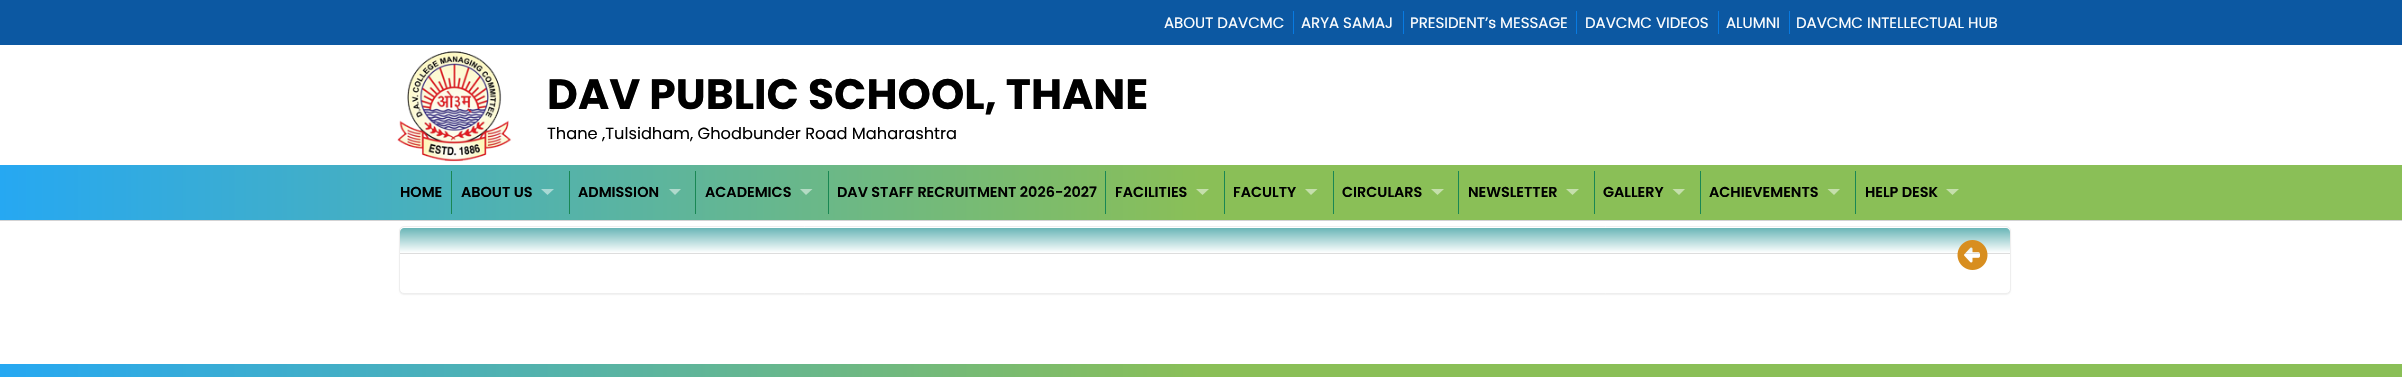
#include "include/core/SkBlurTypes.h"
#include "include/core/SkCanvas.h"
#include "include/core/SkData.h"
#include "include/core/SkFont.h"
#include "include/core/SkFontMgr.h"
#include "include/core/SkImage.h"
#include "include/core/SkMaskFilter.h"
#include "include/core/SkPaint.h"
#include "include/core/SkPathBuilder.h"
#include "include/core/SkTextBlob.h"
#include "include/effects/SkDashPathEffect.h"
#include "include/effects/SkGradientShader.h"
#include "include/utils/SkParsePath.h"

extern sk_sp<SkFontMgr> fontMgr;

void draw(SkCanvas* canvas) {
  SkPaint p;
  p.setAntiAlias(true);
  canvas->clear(SK_ColorWHITE);
  p.setColor(SkColorSetRGB(12, 88, 162));
  canvas->drawRect(SkRect::MakeLTRB(0, 0, 2402, 45), p);
  p.setColor(SkColorSetRGB(8, 122, 225));
  canvas->drawRect(SkRect::MakeLTRB(1293, 11, 1294, 34), p);
  canvas->drawRect(SkRect::MakeLTRB(1403, 11, 1404, 34), p);
  canvas->drawRect(SkRect::MakeLTRB(1576, 11, 1577, 34), p);
  canvas->drawRect(SkRect::MakeLTRB(1718, 11, 1719, 34), p);
  canvas->drawRect(SkRect::MakeLTRB(1789, 11, 1790, 34), p);
  canvas->drawImageRect(SkImages::DeferredFromEncodedData(SkData::MakeFromFileName("images/1.png")), SkRect::MakeLTRB(397, 51, 512, 162), SkSamplingOptions());
  {
    const SkColor colors[] = {SkColorSetRGB(38, 168, 242), SkColorSetRGB(138, 191, 87)};
    const float stops[] = {0, 0.5f};
    const SkPoint ends[] = {{0, 193}, {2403, 192}};
    p.setShader(SkGradientShader::MakeLinear(ends, colors, stops, 2, SkTileMode::kClamp));
    p.setAlpha(255);
  }
  canvas->drawRect(SkRect::MakeLTRB(0, 165, 2402, 220), p);
  p.setShader(nullptr);
  p.setColor(SkColorSetRGB(211, 211, 212));
  canvas->drawRect(SkRect::MakeLTRB(0, 220, 2402, 221), p);
  p.setColor(SkColorSetRGB(25, 135, 84));
  canvas->drawRect(SkRect::MakeLTRB(451, 171, 452, 214), p);
  canvas->drawRect(SkRect::MakeLTRB(569, 171, 570, 214), p);
  p.setColor(SkColorSetRGB(169, 217, 213));
  canvas->drawPath(SkPathBuilder().moveTo(541, 189).lineTo(554, 189).lineTo(547.5f, 195).close().detach(), p);
  p.setColor(SkColorSetRGB(25, 135, 84));
  canvas->drawRect(SkRect::MakeLTRB(695, 171, 696, 214), p);
  p.setColor(SkColorSetRGB(175, 218, 205));
  canvas->drawPath(SkPathBuilder().moveTo(669, 189).lineTo(681, 189).lineTo(675, 195).close().detach(), p);
  p.setColor(SkColorSetRGB(25, 135, 84));
  canvas->drawRect(SkRect::MakeLTRB(828, 171, 829, 214), p);
  p.setColor(SkColorSetRGB(180, 219, 196));
  canvas->drawPath(SkPathBuilder().moveTo(800, 189).lineTo(812.5f, 189).lineTo(806, 195).close().detach(), p);
  p.setColor(SkColorSetRGB(25, 135, 84));
  canvas->drawRect(SkRect::MakeLTRB(1105, 171, 1106, 214), p);
  canvas->drawRect(SkRect::MakeLTRB(1224, 171, 1225, 214), p);
  p.setColor(SkColorSetRGB(197, 223, 171));
  canvas->drawPath(SkPathBuilder().moveTo(1196, 189).lineTo(1209, 189).lineTo(1202.5f, 195).close().detach(), p);
  p.setColor(SkColorSetRGB(25, 135, 84));
  canvas->drawRect(SkRect::MakeLTRB(1333, 171, 1334, 214), p);
  p.setColor(SkColorSetRGB(197, 223, 171));
  canvas->drawPath(SkPathBuilder().moveTo(1305, 189).lineTo(1317.5f, 189).lineTo(1311, 195).close().detach(), p);
  p.setColor(SkColorSetRGB(25, 135, 84));
  canvas->drawRect(SkRect::MakeLTRB(1458, 171, 1459, 214), p);
  p.setColor(SkColorSetRGB(197, 223, 171));
  canvas->drawPath(SkPathBuilder().moveTo(1431, 189).lineTo(1444, 189).lineTo(1437.5f, 195).close().detach(), p);
  p.setColor(SkColorSetRGB(25, 135, 84));
  canvas->drawRect(SkRect::MakeLTRB(1594, 171, 1595, 214), p);
  p.setColor(SkColorSetRGB(197, 223, 171));
  canvas->drawPath(SkPathBuilder().moveTo(1566, 189).lineTo(1579, 189).lineTo(1572.5f, 195).close().detach(), p);
  p.setColor(SkColorSetRGB(25, 135, 84));
  canvas->drawRect(SkRect::MakeLTRB(1700, 171, 1701, 214), p);
  p.setColor(SkColorSetRGB(197, 223, 171));
  canvas->drawPath(SkPathBuilder().moveTo(1672.5f, 189).lineTo(1685, 189).lineTo(1679, 195).close().detach(), p);
  p.setColor(SkColorSetRGB(25, 135, 84));
  canvas->drawRect(SkRect::MakeLTRB(1855, 171, 1856, 214), p);
  p.setColor(SkColorSetRGB(197, 223, 171));
  canvas->drawPath(SkPathBuilder().moveTo(1827.5f, 189).lineTo(1840, 189).lineTo(1834, 195).close().detach(), p);
  canvas->drawPath(SkPathBuilder().moveTo(1946, 189).lineTo(1959, 189).lineTo(1952.5f, 195).close().detach(), p);
  p.setColor(SkColorSetARGB(13, 0, 0, 0));
  p.setMaskFilter(SkMaskFilter::MakeBlur(kNormal_SkBlurStyle, 0.5f));
  canvas->drawRoundRect(SkRect::MakeLTRB(399, 228, 2011, 295), 5, 5, p);
  p.setMaskFilter(nullptr);
  p.setColor(SK_ColorWHITE);
  canvas->drawRoundRect(SkRect::MakeLTRB(399.5f, 226.5f, 2010.5f, 293.5f), 4.5f, 4.5f, p);
  p.setStyle(SkPaint::kStroke_Style);
  p.setStrokeWidth(1);
  p.setColor(SkColorSetRGB(238, 238, 238));
  canvas->drawRoundRect(SkRect::MakeLTRB(399.5f, 226.5f, 2010.5f, 293.5f), 4.5f, 4.5f, p);
  p.setStyle(SkPaint::kFill_Style);
  {
    const SkColor colors[] = {SkColorSetRGB(100, 179, 180), SK_ColorWHITE};
    const float stops[] = {0, 1};
    const SkPoint ends[] = {{1205, 227}, {1205, 253}};
    p.setShader(SkGradientShader::MakeLinear(ends, colors, stops, 2, SkTileMode::kClamp));
    p.setAlpha(255);
  }
  canvas->drawPath(SkPathBuilder().moveTo(404, 228).lineTo(2006, 228).cubicTo(2008, 228, 2010, 230, 2010, 232).lineTo(2010, 253).lineTo(400, 253).lineTo(400, 232).cubicTo(400, 230, 402, 228, 404, 228).close().detach(), p);
  p.setShader(nullptr);
  p.setColor(SkColorSetRGB(221, 221, 221));
  canvas->drawRect(SkRect::MakeLTRB(400, 253, 2010, 254), p);
  canvas->drawImageRect(SkImages::DeferredFromEncodedData(SkData::MakeFromFileName("images/2.png")), SkRect::MakeLTRB(1957, 240, 1988, 270), SkSamplingOptions());
  {
    const SkColor colors[] = {SkColorSetRGB(38, 168, 242), SkColorSetRGB(138, 191, 87)};
    const float stops[] = {0, 0.5f};
    const SkPoint ends[] = {{0, 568}, {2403, 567}};
    p.setShader(SkGradientShader::MakeLinear(ends, colors, stops, 2, SkTileMode::kClamp));
    p.setAlpha(255);
  }
  canvas->drawRect(SkRect::MakeLTRB(0, 364, 2402, 377), p);
  SkFont font1(fontMgr->matchFamilyStyle("Poppins", SkFontStyle::Normal()), 15);
  font1.setSubpixel(true);
  p.setShader(nullptr);
  p.setColor(SK_ColorWHITE);
  canvas->drawString("ABOUT DAVCMC", 1164, 28, font1, p);
  canvas->drawString("ARYA SAMAJ", 1301, 28, font1, p);
  canvas->drawString("PRESIDENT’s MESSAGE", 1410, 28, font1, p);
  canvas->drawString("DAVCMC VIDEOS", 1585, 28, font1, p);
  canvas->drawString("ALUMNI", 1726, 28, font1, p);
  canvas->drawString("DAVCMC INTELLECTUAL HUB", 1796, 28, font1, p);
  SkFont font2(fontMgr->matchFamilyStyle("Poppins", SkFontStyle::Bold()), 42.5f);
  font2.setSubpixel(true);
  p.setColor(SK_ColorBLACK);
  canvas->drawString("DAV PUBLIC SCHOOL, THANE", 547, 109, font2, p);
  SkFont font3(fontMgr->matchFamilyStyle("Poppins", SkFontStyle::Normal()), 16.25f);
  font3.setSubpixel(true);
  canvas->drawString("Thane ,Tulsidham, Ghodbunder Road Maharashtra", 547, 139, font3, p);
  SkFont font4(fontMgr->matchFamilyStyle("Poppins", SkFontStyle(600, SkFontStyle::kNormal_Width, SkFontStyle::kUpright_Slant)), 14.4f);
  font4.setSubpixel(true);
  canvas->drawString("HOME", 400, 197, font4, p);
  canvas->drawString("ABOUT US", 461, 197, font4, p);
  canvas->drawString("ADMISSION", 578, 197, font4, p);
  canvas->drawString("ACADEMICS", 705, 197, font4, p);
  canvas->drawString("DAV STAFF RECRUITMENT 2026-2027", 837, 197, font4, p);
  canvas->drawString("FACILITIES", 1115, 197, font4, p);
  canvas->drawString("FACULTY", 1233, 197, font4, p);
  canvas->drawString("CIRCULARS", 1342, 197, font4, p);
  canvas->drawString("NEWSLETTER", 1468, 197, font4, p);
  canvas->drawString("GALLERY", 1603, 197, font4, p);
  canvas->drawString("ACHIEVEMENTS", 1709, 197, font4, p);
  canvas->drawString("HELP DESK", 1865, 197, font4, p);
}
